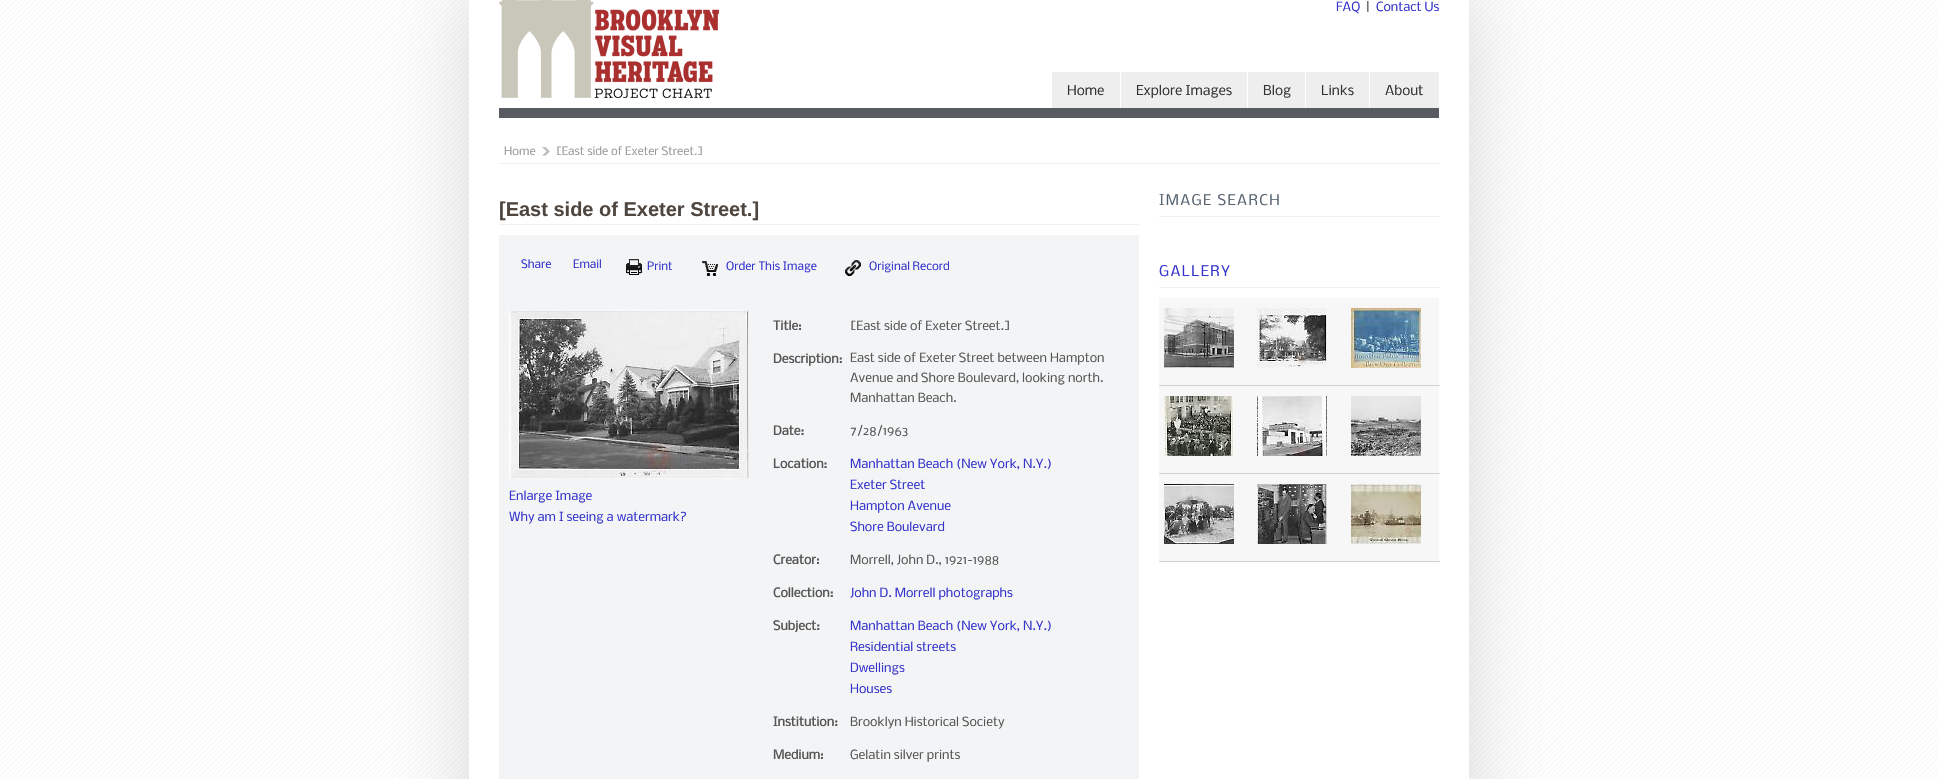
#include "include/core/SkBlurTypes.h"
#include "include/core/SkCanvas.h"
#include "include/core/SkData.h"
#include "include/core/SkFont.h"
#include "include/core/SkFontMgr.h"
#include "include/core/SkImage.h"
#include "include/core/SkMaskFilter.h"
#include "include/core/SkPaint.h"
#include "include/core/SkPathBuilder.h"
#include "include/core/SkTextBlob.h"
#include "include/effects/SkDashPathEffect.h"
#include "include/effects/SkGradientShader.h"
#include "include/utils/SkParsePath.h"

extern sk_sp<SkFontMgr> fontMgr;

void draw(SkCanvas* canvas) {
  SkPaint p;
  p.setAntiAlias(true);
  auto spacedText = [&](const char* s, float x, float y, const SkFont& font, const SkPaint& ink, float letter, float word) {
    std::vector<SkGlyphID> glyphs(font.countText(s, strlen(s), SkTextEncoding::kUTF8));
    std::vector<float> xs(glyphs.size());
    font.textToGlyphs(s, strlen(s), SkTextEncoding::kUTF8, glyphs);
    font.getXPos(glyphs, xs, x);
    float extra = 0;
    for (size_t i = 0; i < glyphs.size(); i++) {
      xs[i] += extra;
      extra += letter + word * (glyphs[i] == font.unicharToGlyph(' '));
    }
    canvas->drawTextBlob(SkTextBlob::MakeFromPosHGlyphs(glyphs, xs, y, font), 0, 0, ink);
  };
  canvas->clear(SK_ColorWHITE);
  canvas->drawImageRect(SkImages::DeferredFromEncodedData(SkData::MakeFromFileName("images/1.png")), SkRect::MakeLTRB(0, 0, 1938, 779), SkSamplingOptions());
  p.setColor(SkColorSetARGB(38, 0, 0, 0));
  p.setMaskFilter(SkMaskFilter::MakeBlur(kNormal_SkBlurStyle, 40));
  canvas->drawRoundRect(SkRect::MakeLTRB(469, -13, 1469, 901), 2, 2, p);
  p.setMaskFilter(nullptr);
  p.setColor(SK_ColorWHITE);
  canvas->drawRect(SkRect::MakeLTRB(469, 0, 1469, 779), p);
  p.setColor(SkColorSetRGB(88, 91, 98));
  canvas->drawRect(SkRect::MakeLTRB(499, 108, 1439, 118), p);
  canvas->drawImageRect(SkImages::DeferredFromEncodedData(SkData::MakeFromFileName("images/2.png")), SkRect::MakeLTRB(499, 0, 719, 98), SkSamplingOptions());
  p.setColor(SkColorSetRGB(238, 238, 238));
  canvas->drawRect(SkRect::MakeLTRB(1052, 72, 1120, 108), p);
  canvas->drawRect(SkRect::MakeLTRB(1121, 72, 1247, 108), p);
  canvas->drawRect(SkRect::MakeLTRB(1248, 72, 1305, 108), p);
  canvas->drawRect(SkRect::MakeLTRB(1306, 72, 1369, 108), p);
  canvas->drawRect(SkRect::MakeLTRB(1370, 72, 1439, 108), p);
  p.setColor(SkColorSetRGB(239, 239, 239));
  canvas->drawRect(SkRect::MakeLTRB(499, 163, 1439, 164), p);
  canvas->drawImageRect(SkImages::DeferredFromEncodedData(SkData::MakeFromFileName("images/3.png")), SkRect::MakeLTRB(542, 147, 550, 156), SkSamplingOptions());
  canvas->drawRect(SkRect::MakeLTRB(499, 224, 1139, 225), p);
  p.setColor(SkColorSetRGB(243, 244, 245));
  canvas->drawRect(SkRect::MakeLTRB(499, 235, 1139, 779), p);
  canvas->drawImageRect(SkImages::DeferredFromEncodedData(SkData::MakeFromFileName("images/4.png")), SkRect::MakeLTRB(626, 259, 642, 275), SkSamplingOptions());
  canvas->drawImageRect(SkImages::DeferredFromEncodedData(SkData::MakeFromFileName("images/5.png")), SkRect::MakeLTRB(702, 261, 718, 276), SkSamplingOptions());
  canvas->drawImageRect(SkImages::DeferredFromEncodedData(SkData::MakeFromFileName("images/6.png")), SkRect::MakeLTRB(845, 260, 861, 276), SkSamplingOptions());
  canvas->drawImageRect(SkImages::DeferredFromEncodedData(SkData::MakeFromFileName("images/7.png")), SkRect::MakeLTRB(509, 310, 749, 479), SkSamplingOptions());
  p.setColor(SkColorSetRGB(239, 239, 239));
  canvas->drawRect(SkRect::MakeLTRB(1159, 216, 1439, 217), p);
  canvas->drawRect(SkRect::MakeLTRB(1159, 287, 1439, 288), p);
  p.setColor(SkColorSetRGB(247, 247, 247));
  canvas->drawRect(SkRect::MakeLTRB(1159, 298, 1439, 385), p);
  canvas->drawImageRect(SkImages::DeferredFromEncodedData(SkData::MakeFromFileName("images/8.png")), SkRect::MakeLTRB(1164, 308, 1234, 368), SkSamplingOptions());
  p.setColor(SkColorSetRGB(209, 209, 209));
  canvas->drawRect(SkRect::MakeLTRB(1159, 385, 1440, 386), p);
  canvas->drawImageRect(SkImages::DeferredFromEncodedData(SkData::MakeFromFileName("images/9.png")), SkRect::MakeLTRB(1351, 308, 1421, 368), SkSamplingOptions());
  canvas->drawImageRect(SkImages::DeferredFromEncodedData(SkData::MakeFromFileName("images/10.png")), SkRect::MakeLTRB(1257, 308, 1327, 368), SkSamplingOptions());
  p.setColor(SkColorSetRGB(247, 247, 247));
  canvas->drawRect(SkRect::MakeLTRB(1159, 386, 1439, 473), p);
  canvas->drawImageRect(SkImages::DeferredFromEncodedData(SkData::MakeFromFileName("images/11.png")), SkRect::MakeLTRB(1164, 396, 1234, 456), SkSamplingOptions());
  p.setColor(SkColorSetRGB(209, 209, 209));
  canvas->drawRect(SkRect::MakeLTRB(1159, 473, 1440, 474), p);
  canvas->drawImageRect(SkImages::DeferredFromEncodedData(SkData::MakeFromFileName("images/12.png")), SkRect::MakeLTRB(1351, 396, 1421, 456), SkSamplingOptions());
  canvas->drawImageRect(SkImages::DeferredFromEncodedData(SkData::MakeFromFileName("images/13.png")), SkRect::MakeLTRB(1257, 396, 1327, 456), SkSamplingOptions());
  p.setColor(SkColorSetRGB(247, 247, 247));
  canvas->drawRect(SkRect::MakeLTRB(1159, 474, 1439, 561), p);
  canvas->drawImageRect(SkImages::DeferredFromEncodedData(SkData::MakeFromFileName("images/14.png")), SkRect::MakeLTRB(1164, 484, 1234, 544), SkSamplingOptions());
  p.setColor(SkColorSetRGB(209, 209, 209));
  canvas->drawRect(SkRect::MakeLTRB(1159, 561, 1440, 562), p);
  canvas->drawImageRect(SkImages::DeferredFromEncodedData(SkData::MakeFromFileName("images/15.png")), SkRect::MakeLTRB(1351, 484, 1421, 544), SkSamplingOptions());
  canvas->drawImageRect(SkImages::DeferredFromEncodedData(SkData::MakeFromFileName("images/16.png")), SkRect::MakeLTRB(1257, 484, 1327, 544), SkSamplingOptions());
  SkFont font1(fontMgr->matchFamilyStyle("Nobile", SkFontStyle::Normal()), 12);
  font1.setSubpixel(true);
  p.setColor(SkColorSetRGB(51, 51, 204));
  canvas->drawString("FAQ", 1336, 11, font1, p);
  p.setColor(SkColorSetRGB(68, 68, 68));
  canvas->drawString("|", 1366, 11, font1, p);
  p.setColor(SkColorSetRGB(51, 51, 204));
  canvas->drawString("Contact Us", 1376, 11, font1, p);
  SkFont font2(fontMgr->matchFamilyStyle("Nobile", SkFontStyle::Normal()), 13);
  font2.setSubpixel(true);
  p.setColor(SkColorSetRGB(51, 51, 51));
  canvas->drawString("Home", 1067, 95, font2, p);
  canvas->drawString("Explore Images", 1136, 95, font2, p);
  canvas->drawString("Blog", 1263, 95, font2, p);
  canvas->drawString("Links", 1321, 95, font2, p);
  canvas->drawString("About", 1385, 95, font2, p);
  SkFont font3(fontMgr->matchFamilyStyle("Nobile", SkFontStyle::Normal()), 11);
  font3.setSubpixel(true);
  p.setColor(SkColorSetRGB(153, 153, 153));
  canvas->drawString("Home", 504, 155, font3, p);
  canvas->drawString("[East side of Exeter Street.]", 556, 155, font3, p);
  SkFont font4(fontMgr->matchFamilyStyle("Liberation Sans", SkFontStyle::Bold()), 20);
  font4.setSubpixel(true);
  p.setColor(SkColorSetRGB(79, 70, 64));
  canvas->drawString("[East side of Exeter Street.]", 499, 216, font4, p);
  p.setColor(SkColorSetRGB(51, 51, 204));
  canvas->drawString("Share", 521, 268, font3, p);
  canvas->drawString("Email", 573, 268, font3, p);
  canvas->drawString("Print", 647, 270, font3, p);
  canvas->drawString("Order This Image", 726, 270, font3, p);
  canvas->drawString("Original Record", 869, 270, font3, p);
  canvas->drawString("Enlarge Image", 509, 500, font1, p);
  canvas->drawString("Why am I seeing a watermark?", 509, 521, font1, p);
  SkFont font5(fontMgr->matchFamilyStyle("Nobile", SkFontStyle::Bold()), 12);
  font5.setSubpixel(true);
  p.setColor(SkColorSetRGB(85, 85, 85));
  canvas->drawString("Title:", 773, 330, font5, p);
  canvas->drawString("[East side of Exeter Street.]", 850, 330, font1, p);
  canvas->drawString("Description:", 773, 363, font5, p);
  canvas->drawString("East side of Exeter Street between Hampton", 850, 362, font1, p);
  canvas->drawString("Avenue and Shore Boulevard, looking north.", 850, 382, font1, p);
  canvas->drawString("Manhattan Beach.", 850, 402, font1, p);
  canvas->drawString("Date:", 773, 435, font5, p);
  canvas->drawString("7/28/1963", 850, 435, font1, p);
  canvas->drawString("Location:", 773, 468, font5, p);
  p.setColor(SkColorSetRGB(51, 51, 204));
  canvas->drawString("Manhattan Beach (New York, N.Y.)", 850, 468, font1, p);
  canvas->drawString("Exeter Street", 850, 489, font1, p);
  canvas->drawString("Hampton Avenue", 850, 510, font1, p);
  canvas->drawString("Shore Boulevard", 850, 531, font1, p);
  p.setColor(SkColorSetRGB(85, 85, 85));
  canvas->drawString("Creator:", 773, 564, font5, p);
  canvas->drawString("Morrell, John D., 1921-1988", 850, 564, font1, p);
  canvas->drawString("Collection:", 773, 597, font5, p);
  p.setColor(SkColorSetRGB(51, 51, 204));
  canvas->drawString("John D. Morrell photographs", 850, 597, font1, p);
  p.setColor(SkColorSetRGB(85, 85, 85));
  canvas->drawString("Subject:", 773, 630, font5, p);
  p.setColor(SkColorSetRGB(51, 51, 204));
  canvas->drawString("Manhattan Beach (New York, N.Y.)", 850, 630, font1, p);
  canvas->drawString("Residential streets", 850, 651, font1, p);
  canvas->drawString("Dwellings", 850, 672, font1, p);
  canvas->drawString("Houses", 850, 693, font1, p);
  p.setColor(SkColorSetRGB(85, 85, 85));
  canvas->drawString("Institution:", 773, 726, font5, p);
  canvas->drawString("Brooklyn Historical Society", 850, 726, font1, p);
  canvas->drawString("Medium:", 773, 759, font5, p);
  canvas->drawString("Gelatin silver prints", 850, 759, font1, p);
  SkFont font6(fontMgr->matchFamilyStyle("Nobile", SkFontStyle::Normal()), 14);
  font6.setSubpixel(true);
  p.setColor(SkColorSetRGB(85, 98, 112));
  spacedText("IMAGE SEARCH", 1159, 205, font6, p, 1.4f, 0);
  p.setColor(SkColorSetRGB(51, 51, 204));
  spacedText("GALLERY", 1159, 276, font6, p, 1.4f, 0);
}
